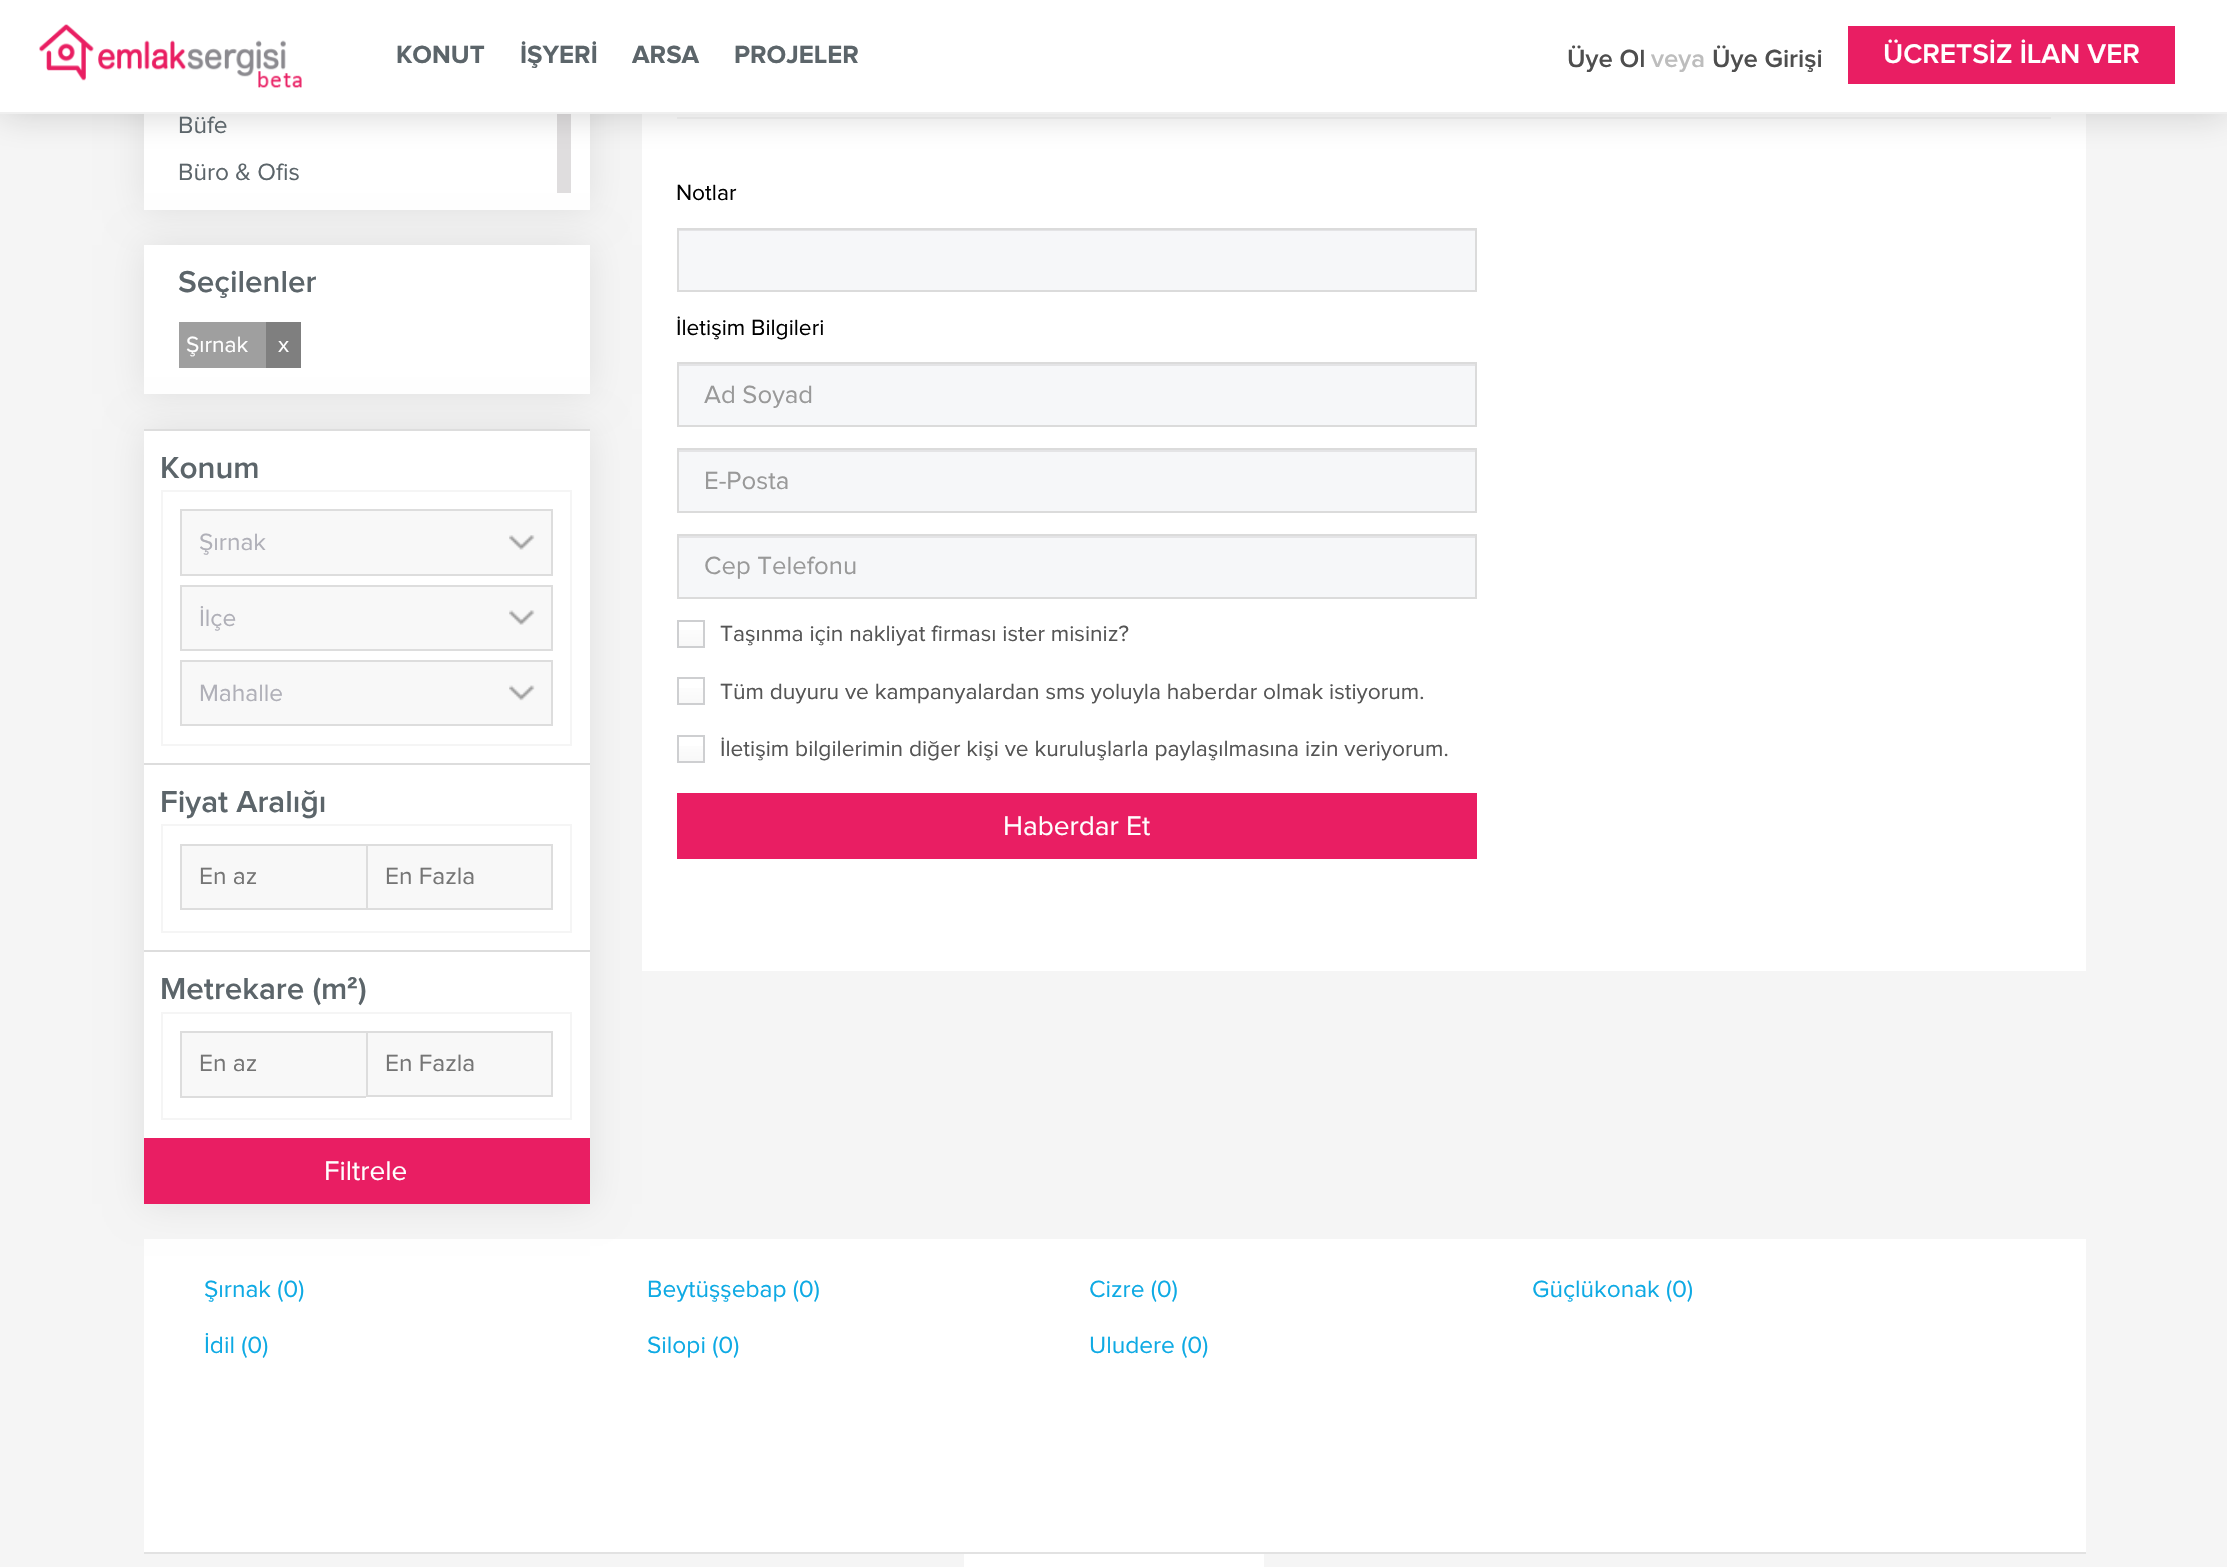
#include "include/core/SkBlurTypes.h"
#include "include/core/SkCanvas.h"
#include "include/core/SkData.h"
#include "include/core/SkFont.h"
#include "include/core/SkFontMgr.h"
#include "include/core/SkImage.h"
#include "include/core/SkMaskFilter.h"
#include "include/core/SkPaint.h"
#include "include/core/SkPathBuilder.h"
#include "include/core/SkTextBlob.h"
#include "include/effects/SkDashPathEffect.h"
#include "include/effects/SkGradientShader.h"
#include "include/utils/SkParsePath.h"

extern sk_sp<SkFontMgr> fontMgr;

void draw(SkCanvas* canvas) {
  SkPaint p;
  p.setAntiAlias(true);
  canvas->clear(SkColorSetRGB(245, 245, 245));
  p.setColor(SK_ColorWHITE);
  canvas->drawRect(SkRect::MakeLTRB(642, 114, 2086, 971), p);
  p.setColor(SkColorSetRGB(223, 223, 223));
  p.setMaskFilter(SkMaskFilter::MakeBlur(kNormal_SkBlurStyle, 17.5f));
  canvas->drawRect(SkRect::MakeLTRB(144, -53, 590, 210), p);
  p.setMaskFilter(nullptr);
  p.setColor(SK_ColorWHITE);
  canvas->drawRect(SkRect::MakeLTRB(144, 114, 590, 210), p);
  p.setColor(SkColorSetRGB(223, 221, 222));
  canvas->drawRect(SkRect::MakeLTRB(557, 114, 571, 193), p);
  p.setColor(SkColorSetRGB(245, 245, 245));
  canvas->drawRect(SkRect::MakeLTRB(677, 117, 2051, 119), p);
  p.setColor(SkColorSetARGB(46, 4, 4, 4));
  p.setMaskFilter(SkMaskFilter::MakeBlur(kNormal_SkBlurStyle, 17.5f));
  canvas->drawRect(SkRect::MakeLTRB(0, 0, 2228, 114), p);
  p.setMaskFilter(nullptr);
  p.setColor(SK_ColorWHITE);
  canvas->drawRect(SkRect::MakeLTRB(0, 0, 2227, 112), p);
  p.setColor(SkColorSetRGB(239, 239, 239));
  canvas->drawRect(SkRect::MakeLTRB(0, 112, 2227, 114), p);
  canvas->drawImageRect(SkImages::DeferredFromEncodedData(SkData::MakeFromFileName("images/1.png")), SkRect::MakeLTRB(39, 24, 302, 88), SkSamplingOptions());
  p.setColor(SkColorSetRGB(233, 30, 99));
  canvas->drawRect(SkRect::MakeLTRB(1848, 26, 2175, 84), p);
  p.setColor(SkColorSetRGB(223, 223, 223));
  p.setMaskFilter(SkMaskFilter::MakeBlur(kNormal_SkBlurStyle, 17.5f));
  canvas->drawRect(SkRect::MakeLTRB(144, 245, 590, 394), p);
  p.setMaskFilter(nullptr);
  p.setColor(SK_ColorWHITE);
  canvas->drawRect(SkRect::MakeLTRB(144, 245, 590, 394), p);
  p.setColor(SkColorSetRGB(159, 159, 159));
  canvas->drawRect(SkRect::MakeLTRB(179, 322, 266, 368), p);
  p.setColor(SkColorSetRGB(127, 127, 127));
  canvas->drawRect(SkRect::MakeLTRB(266, 322, 301, 368), p);
  p.setColor(SK_ColorWHITE);
  canvas->drawRect(SkRect::MakeLTRB(144, 1239, 2086, 1552), p);
  p.setColor(SkColorSetRGB(223, 223, 223));
  p.setMaskFilter(SkMaskFilter::MakeBlur(kNormal_SkBlurStyle, 17.5f));
  canvas->drawRect(SkRect::MakeLTRB(144, 429, 590, 1204), p);
  p.setMaskFilter(nullptr);
  p.setColor(SK_ColorWHITE);
  canvas->drawRect(SkRect::MakeLTRB(144, 431, 590, 1138), p);
  p.setColor(SkColorSetRGB(221, 221, 221));
  canvas->drawRect(SkRect::MakeLTRB(144, 429, 590, 431), p);
  p.setStyle(SkPaint::kStroke_Style);
  p.setStrokeWidth(2);
  p.setColor(SkColorSetRGB(245, 245, 245));
  canvas->drawRect(SkRect::MakeLTRB(162, 491, 571, 745), p);
  p.setStyle(SkPaint::kFill_Style);
  p.setColor(SkColorSetRGB(248, 248, 248));
  canvas->drawRect(SkRect::MakeLTRB(181, 510, 552, 575), p);
  p.setStyle(SkPaint::kStroke_Style);
  p.setColor(SkColorSetRGB(221, 221, 221));
  canvas->drawRect(SkRect::MakeLTRB(181, 510, 552, 575), p);
  canvas->drawImageRect(SkImages::DeferredFromEncodedData(SkData::MakeFromFileName("images/2.png")), SkRect::MakeLTRB(509, 535, 535, 550), SkSamplingOptions());
  p.setStyle(SkPaint::kFill_Style);
  p.setColor(SkColorSetRGB(248, 248, 248));
  canvas->drawRect(SkRect::MakeLTRB(181, 586, 552, 650), p);
  p.setStyle(SkPaint::kStroke_Style);
  p.setColor(SkColorSetRGB(221, 221, 221));
  canvas->drawRect(SkRect::MakeLTRB(181, 586, 552, 650), p);
  canvas->drawImageRect(SkImages::DeferredFromEncodedData(SkData::MakeFromFileName("images/3.png")), SkRect::MakeLTRB(509, 610, 535, 625), SkSamplingOptions());
  p.setStyle(SkPaint::kFill_Style);
  p.setColor(SkColorSetRGB(248, 248, 248));
  canvas->drawRect(SkRect::MakeLTRB(181, 661, 552, 725), p);
  p.setStyle(SkPaint::kStroke_Style);
  p.setColor(SkColorSetRGB(221, 221, 221));
  canvas->drawRect(SkRect::MakeLTRB(181, 661, 552, 725), p);
  canvas->drawImageRect(SkImages::DeferredFromEncodedData(SkData::MakeFromFileName("images/4.png")), SkRect::MakeLTRB(509, 685, 535, 701), SkSamplingOptions());
  p.setStyle(SkPaint::kFill_Style);
  canvas->drawRect(SkRect::MakeLTRB(144, 763, 590, 765), p);
  p.setStyle(SkPaint::kStroke_Style);
  p.setColor(SkColorSetRGB(245, 245, 245));
  canvas->drawRect(SkRect::MakeLTRB(162, 825, 571, 932), p);
  p.setStyle(SkPaint::kFill_Style);
  p.setColor(SkColorSetRGB(248, 248, 248));
  canvas->drawRect(SkRect::MakeLTRB(182, 846, 366, 908), p);
  p.setColor(SkColorSetRGB(221, 221, 221));
  canvas->drawRect(SkRect::MakeLTRB(180, 844, 366, 846), p);
  canvas->drawRect(SkRect::MakeLTRB(180, 908, 366, 910), p);
  canvas->drawRect(SkRect::MakeLTRB(180, 844, 182, 910), p);
  p.setColor(SkColorSetRGB(248, 248, 248));
  canvas->drawRect(SkRect::MakeLTRB(367, 845, 552, 909), p);
  p.setStyle(SkPaint::kStroke_Style);
  p.setColor(SkColorSetRGB(221, 221, 221));
  canvas->drawRect(SkRect::MakeLTRB(367, 845, 552, 909), p);
  p.setStyle(SkPaint::kFill_Style);
  canvas->drawRect(SkRect::MakeLTRB(144, 950, 590, 952), p);
  p.setStyle(SkPaint::kStroke_Style);
  p.setColor(SkColorSetRGB(245, 245, 245));
  canvas->drawRect(SkRect::MakeLTRB(162, 1013, 571, 1119), p);
  p.setStyle(SkPaint::kFill_Style);
  p.setColor(SkColorSetRGB(248, 248, 248));
  canvas->drawRect(SkRect::MakeLTRB(182, 1033, 366, 1096), p);
  p.setColor(SkColorSetRGB(221, 221, 221));
  canvas->drawRect(SkRect::MakeLTRB(180, 1031, 366, 1033), p);
  canvas->drawRect(SkRect::MakeLTRB(180, 1096, 366, 1098), p);
  canvas->drawRect(SkRect::MakeLTRB(180, 1031, 182, 1097), p);
  p.setColor(SkColorSetRGB(248, 248, 248));
  canvas->drawRect(SkRect::MakeLTRB(367, 1032, 552, 1096), p);
  p.setStyle(SkPaint::kStroke_Style);
  p.setColor(SkColorSetRGB(221, 221, 221));
  canvas->drawRect(SkRect::MakeLTRB(367, 1032, 552, 1096), p);
  p.setStyle(SkPaint::kFill_Style);
  p.setColor(SkColorSetRGB(233, 30, 99));
  canvas->drawRect(SkRect::MakeLTRB(144, 1138, 590, 1204), p);
  p.setColor(SkColorSetRGB(246, 247, 249));
  canvas->drawRect(SkRect::MakeLTRB(679, 231, 1475, 290), p);
  p.setColor(SkColorSetRGB(228, 228, 230));
  canvas->drawRect(SkRect::MakeLTRB(679, 230, 1475, 231), p);
  p.setStyle(SkPaint::kStroke_Style);
  p.setColor(SkColorSetRGB(219, 219, 219));
  canvas->drawRect(SkRect::MakeLTRB(678, 229, 1476, 291), p);
  p.setStyle(SkPaint::kFill_Style);
  p.setColor(SkColorSetRGB(246, 247, 249));
  canvas->drawRect(SkRect::MakeLTRB(679, 366, 1475, 425), p);
  p.setColor(SkColorSetRGB(228, 228, 230));
  canvas->drawRect(SkRect::MakeLTRB(679, 364, 1475, 366), p);
  p.setStyle(SkPaint::kStroke_Style);
  p.setColor(SkColorSetRGB(219, 219, 219));
  canvas->drawRect(SkRect::MakeLTRB(678, 363, 1476, 426), p);
  p.setStyle(SkPaint::kFill_Style);
  p.setColor(SkColorSetRGB(246, 247, 249));
  canvas->drawRect(SkRect::MakeLTRB(679, 452, 1475, 511), p);
  p.setColor(SkColorSetRGB(228, 228, 230));
  canvas->drawRect(SkRect::MakeLTRB(679, 450, 1475, 452), p);
  p.setStyle(SkPaint::kStroke_Style);
  p.setColor(SkColorSetRGB(219, 219, 219));
  canvas->drawRect(SkRect::MakeLTRB(678, 449, 1476, 512), p);
  p.setStyle(SkPaint::kFill_Style);
  p.setColor(SkColorSetRGB(246, 247, 249));
  canvas->drawRect(SkRect::MakeLTRB(679, 538, 1475, 597), p);
  p.setColor(SkColorSetRGB(228, 228, 230));
  canvas->drawRect(SkRect::MakeLTRB(679, 536, 1475, 538), p);
  p.setStyle(SkPaint::kStroke_Style);
  p.setColor(SkColorSetRGB(219, 219, 219));
  canvas->drawRect(SkRect::MakeLTRB(678, 535, 1476, 598), p);
  p.setStyle(SkPaint::kFill_Style);
  {
    const SkColor colors[] = {SK_ColorWHITE, SkColorSetRGB(248, 248, 248)};
    const float stops[] = {0, 1};
    const SkPoint ends[] = {{691, 621}, {691, 646}};
    p.setShader(SkGradientShader::MakeLinear(ends, colors, stops, 2, SkTileMode::kClamp));
    p.setAlpha(255);
  }
  canvas->drawRect(SkRect::MakeLTRB(679, 630, 703, 646), p);
  p.setStyle(SkPaint::kStroke_Style);
  p.setShader(nullptr);
  p.setColor(SkColorSetRGB(206, 207, 209));
  canvas->drawRect(SkRect::MakeLTRB(678, 621, 704, 647), p);
  p.setStyle(SkPaint::kFill_Style);
  {
    const SkColor colors[] = {SK_ColorWHITE, SkColorSetRGB(248, 248, 248)};
    const float stops[] = {0, 1};
    const SkPoint ends[] = {{691, 679}, {691, 704}};
    p.setShader(SkGradientShader::MakeLinear(ends, colors, stops, 2, SkTileMode::kClamp));
    p.setAlpha(255);
  }
  canvas->drawRect(SkRect::MakeLTRB(679, 688, 703, 703), p);
  p.setStyle(SkPaint::kStroke_Style);
  p.setShader(nullptr);
  p.setColor(SkColorSetRGB(206, 207, 209));
  canvas->drawRect(SkRect::MakeLTRB(678, 678, 704, 704), p);
  p.setStyle(SkPaint::kFill_Style);
  {
    const SkColor colors[] = {SK_ColorWHITE, SkColorSetRGB(248, 248, 248)};
    const float stops[] = {0, 1};
    const SkPoint ends[] = {{691, 737}, {691, 761}};
    p.setShader(SkGradientShader::MakeLinear(ends, colors, stops, 2, SkTileMode::kClamp));
    p.setAlpha(255);
  }
  canvas->drawRect(SkRect::MakeLTRB(679, 746, 703, 761), p);
  p.setStyle(SkPaint::kStroke_Style);
  p.setShader(nullptr);
  p.setColor(SkColorSetRGB(206, 207, 209));
  canvas->drawRect(SkRect::MakeLTRB(678, 736, 704, 762), p);
  p.setStyle(SkPaint::kFill_Style);
  p.setColor(SkColorSetRGB(233, 30, 99));
  canvas->drawRect(SkRect::MakeLTRB(677, 793, 1477, 859), p);
  p.setColor(SkColorSetRGB(226, 226, 226));
  canvas->drawRect(SkRect::MakeLTRB(144, 1552, 2086, 1554), p);
  p.setColor(SK_ColorWHITE);
  canvas->drawRect(SkRect::MakeLTRB(964, 1554, 1264, 1567), p);
  SkFont font1(fontMgr->matchFamilyStyle("Proxima Nova", SkFontStyle::Bold()), 25.75f);
  font1.setSubpixel(true);
  p.setColor(SkColorSetRGB(92, 101, 106));
  canvas->drawString("KONUT", 396, 63, font1, p);
  canvas->drawString("İŞYERİ", 520, 63, font1, p);
  canvas->drawString("ARSA", 632, 63, font1, p);
  canvas->drawString("PROJELER", 734, 63, font1, p);
  SkFont font2(fontMgr->matchFamilyStyle("Proxima Nova", SkFontStyle(600, SkFontStyle::kNormal_Width, SkFontStyle::kUpright_Slant)), 25.75f);
  font2.setSubpixel(true);
  p.setColor(SkColorSetRGB(78, 78, 78));
  canvas->drawString("Üye Ol", 1567, 67, font2, p);
  p.setColor(SkColorSetRGB(189, 189, 189));
  canvas->drawString("veya", 1651, 67, font2, p);
  p.setColor(SkColorSetRGB(78, 78, 78));
  canvas->drawString("Üye Girişi", 1712, 67, font2, p);
  SkFont font3(fontMgr->matchFamilyStyle("Proxima Nova", SkFontStyle(600, SkFontStyle::kNormal_Width, SkFontStyle::kUpright_Slant)), 28);
  font3.setSubpixel(true);
  p.setColor(SK_ColorWHITE);
  canvas->drawString("ÜCRETSİZ İLAN VER", 1883, 63, font3, p);
  SkFont font4(fontMgr->matchFamilyStyle("Proxima Nova", SkFontStyle::Normal()), 24.5f);
  font4.setSubpixel(true);
  p.setColor(SkColorSetRGB(92, 101, 106));
  canvas->drawString("Büfe", 178, 133, font4, p);
  canvas->drawString("Büro & Ofis", 178, 180, font4, p);
  SkFont font5(fontMgr->matchFamilyStyle("Proxima Nova", SkFontStyle(600, SkFontStyle::kNormal_Width, SkFontStyle::kUpright_Slant)), 31.5f);
  font5.setSubpixel(true);
  canvas->drawString("Seçilenler", 178, 292, font5, p);
  SkFont font6(fontMgr->matchFamilyStyle("Proxima Nova", SkFontStyle::Normal()), 22.75f);
  font6.setSubpixel(true);
  p.setColor(SK_ColorWHITE);
  canvas->drawString("Şırnak", 186, 352, font6, p);
  canvas->drawString("x", 278, 352, font6, p);
  p.setColor(SkColorSetRGB(92, 101, 106));
  canvas->drawString("Konum", 160, 478, font5, p);
  p.setColor(SkColorSetRGB(176, 176, 184));
  canvas->drawString("Şırnak", 199, 550, font4, p);
  canvas->drawString("İlçe", 199, 626, font4, p);
  canvas->drawString("Mahalle", 199, 701, font4, p);
  p.setColor(SkColorSetRGB(92, 101, 106));
  canvas->drawString("Fiyat Aralığı", 160, 812, font5, p);
  p.setColor(SkColorSetRGB(117, 117, 117));
  canvas->drawString("En az", 199, 884, font4, p);
  canvas->drawString("En Fazla", 385, 884, font4, p);
  p.setColor(SkColorSetRGB(92, 101, 106));
  canvas->drawString("Metrekare (m", 160, 999, font5, p);
  SkFont font7(fontMgr->matchFamilyStyle("Liberation Sans", SkFontStyle::Bold()), 31.5f);
  font7.setSubpixel(true);
  canvas->drawString("²", 347, 999, font7, p);
  canvas->drawString(")", 358, 999, font5, p);
  p.setColor(SkColorSetRGB(117, 117, 117));
  canvas->drawString("En az", 199, 1071, font4, p);
  canvas->drawString("En Fazla", 385, 1071, font4, p);
  SkFont font8(fontMgr->matchFamilyStyle("Proxima Nova", SkFontStyle::Normal()), 28);
  font8.setSubpixel(true);
  p.setColor(SK_ColorWHITE);
  canvas->drawString("Filtrele", 324, 1180, font8, p);
  p.setColor(SK_ColorBLACK);
  canvas->drawString("Notlar", 676, 200, font6, p);
  canvas->drawString("İletişim Bilgileri", 676, 335, font6, p);
  SkFont font9(fontMgr->matchFamilyStyle("Proxima Nova", SkFontStyle::Normal()), 25.75f);
  font9.setSubpixel(true);
  p.setColor(SkColorSetRGB(153, 153, 153));
  canvas->drawString("Ad Soyad", 704, 403, font9, p);
  canvas->drawString("E-Posta", 704, 489, font9, p);
  canvas->drawString("Cep Telefonu", 704, 574, font9, p);
  p.setColor(SkColorSetRGB(85, 85, 85));
  canvas->drawString("Taşınma için nakliyat firması ister misiniz?", 720, 641, font6, p);
  canvas->drawString("Tüm duyuru ve kampanyalardan sms yoluyla haberdar olmak istiyorum.", 720, 699, font6, p);
  canvas->drawString("İletişim bilgilerimin diğer kişi ve kuruluşlarla paylaşılmasına izin veriyorum.", 720, 756, font6, p);
  p.setColor(SK_ColorWHITE);
  canvas->drawString("Haberdar Et", 1003, 835, font8, p);
  p.setColor(SkColorSetRGB(14, 170, 228));
  canvas->drawString("Şırnak (0)", 204, 1297, font4, p);
  canvas->drawString("Beytüşşebap (0)", 647, 1297, font4, p);
  canvas->drawString("Cizre (0)", 1089, 1297, font4, p);
  canvas->drawString("Güçlükonak (0)", 1532, 1297, font4, p);
  canvas->drawString("İdil (0)", 204, 1353, font4, p);
  canvas->drawString("Silopi (0)", 647, 1353, font4, p);
  canvas->drawString("Uludere (0)", 1089, 1353, font4, p);
}
